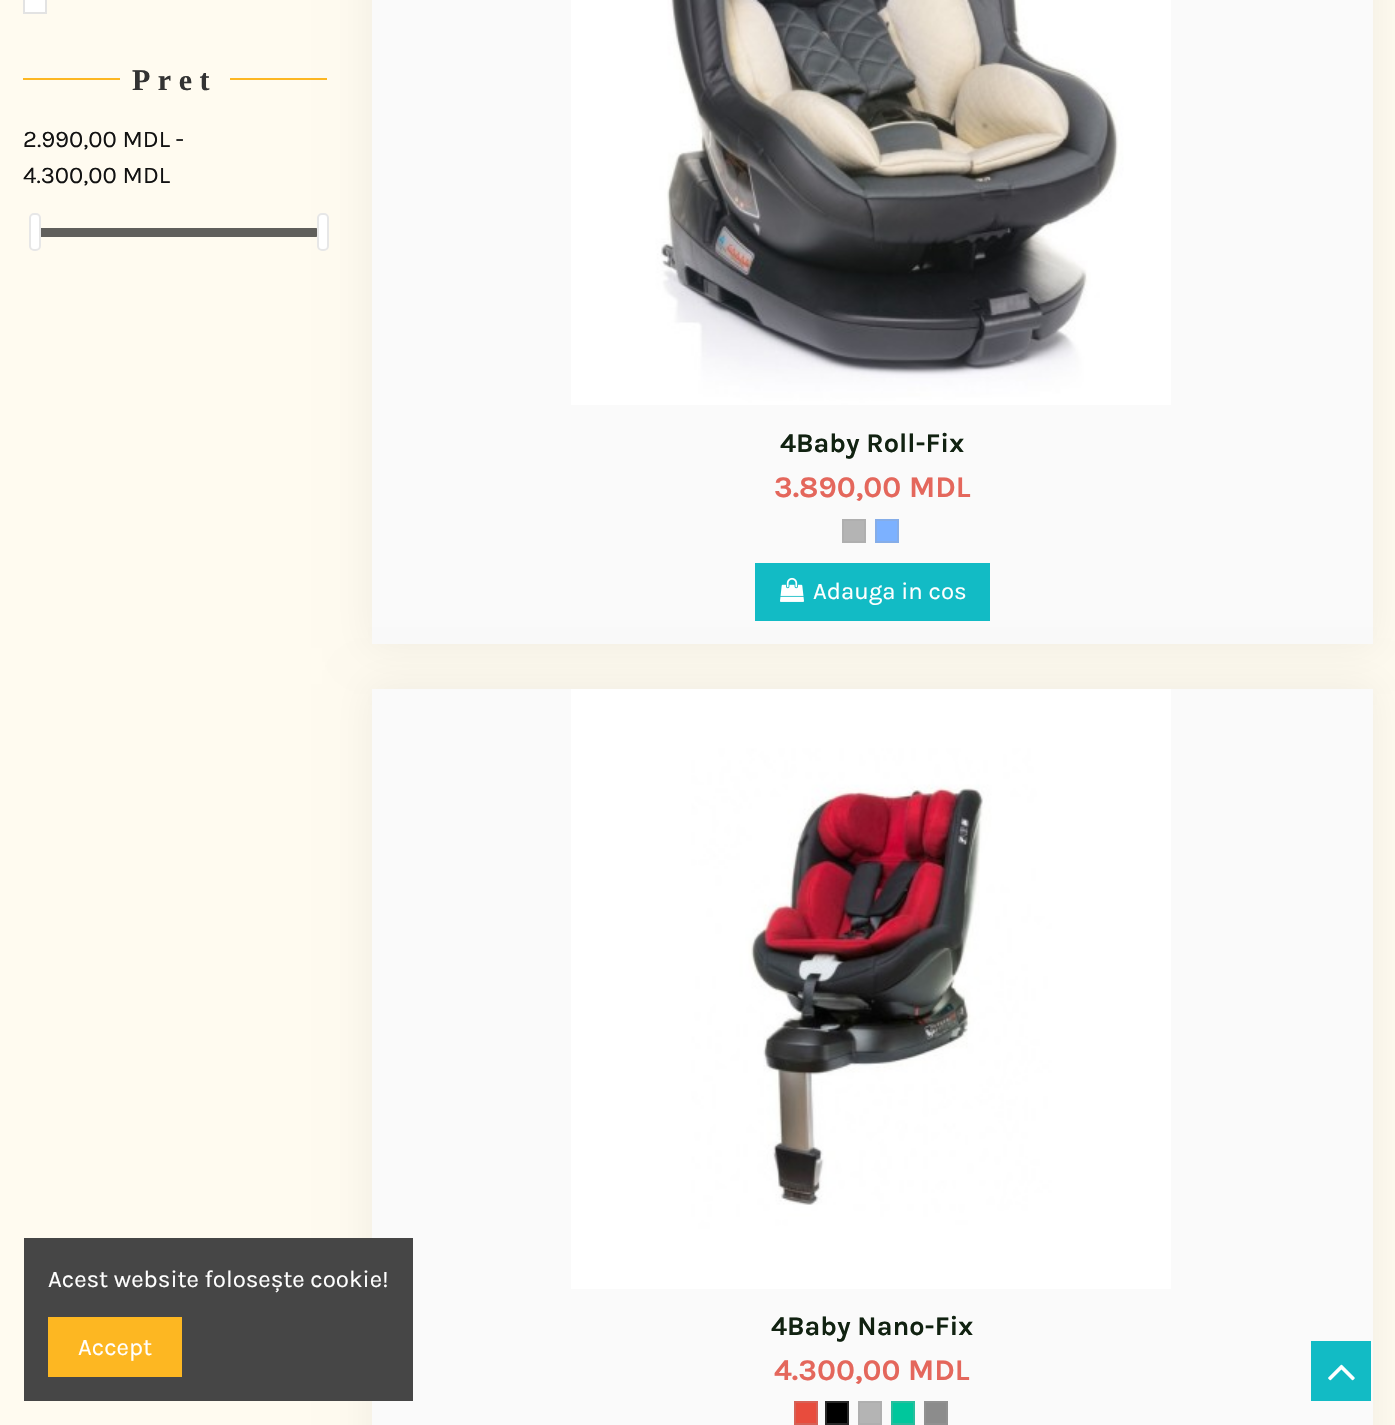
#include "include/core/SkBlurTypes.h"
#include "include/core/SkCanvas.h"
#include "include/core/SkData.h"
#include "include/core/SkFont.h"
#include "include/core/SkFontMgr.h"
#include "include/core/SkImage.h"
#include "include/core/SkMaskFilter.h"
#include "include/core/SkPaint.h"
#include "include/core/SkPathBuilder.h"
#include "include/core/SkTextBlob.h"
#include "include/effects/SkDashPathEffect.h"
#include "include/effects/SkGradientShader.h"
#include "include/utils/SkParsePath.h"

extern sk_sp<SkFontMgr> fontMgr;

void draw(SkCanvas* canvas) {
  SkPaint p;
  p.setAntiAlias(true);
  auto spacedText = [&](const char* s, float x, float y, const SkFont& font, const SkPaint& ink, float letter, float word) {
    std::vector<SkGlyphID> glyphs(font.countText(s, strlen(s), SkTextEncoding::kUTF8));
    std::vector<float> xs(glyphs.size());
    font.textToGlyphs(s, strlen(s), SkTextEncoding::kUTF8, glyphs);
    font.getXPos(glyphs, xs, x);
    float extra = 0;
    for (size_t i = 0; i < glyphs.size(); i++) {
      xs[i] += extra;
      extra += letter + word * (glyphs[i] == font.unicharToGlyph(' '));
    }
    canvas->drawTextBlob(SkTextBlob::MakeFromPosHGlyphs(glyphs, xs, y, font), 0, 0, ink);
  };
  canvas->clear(SkColorSetRGB(255, 251, 240));
  p.setColor(SK_ColorWHITE);
  canvas->drawRect(SkRect::MakeLTRB(24, -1, 46, 13), p);
  p.setStyle(SkPaint::kStroke_Style);
  p.setStrokeWidth(2);
  p.setColor(SkColorSetRGB(227, 227, 227));
  canvas->drawRect(SkRect::MakeLTRB(24, -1, 46, 13), p);
  p.setStyle(SkPaint::kFill_Style);
  p.setColor(SkColorSetRGB(253, 183, 34));
  canvas->drawRect(SkRect::MakeLTRB(23, 78, 120, 80), p);
  canvas->drawRect(SkRect::MakeLTRB(230, 78, 327, 80), p);
  p.setColor(SkColorSetRGB(240, 237, 229));
  canvas->drawRoundRect(SkRect::MakeLTRB(30, 228, 320, 237), 4.5f, 4.5f, p);
  p.setColor(SkColorSetARGB(13, 0, 0, 0));
  p.setMaskFilter(SkMaskFilter::MakeBlur(kNormal_SkBlurStyle, 19));
  canvas->drawRect(SkRect::MakeLTRB(368, -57, 1377, 648), p);
  p.setMaskFilter(nullptr);
  p.setColor(SkColorSetARGB(153, 0, 0, 0));
  canvas->drawRoundRect(SkRect::MakeLTRB(30, 228, 320, 237), 4.5f, 4.5f, p);
  p.setColor(SK_ColorWHITE);
  canvas->drawRoundRect(SkRect::MakeLTRB(29, 213, 41, 251), 5, 5, p);
  p.setStyle(SkPaint::kStroke_Style);
  p.setColor(SkColorSetARGB(64, 161, 161, 161));
  canvas->drawRoundRect(SkRect::MakeLTRB(30, 214, 40, 250), 4, 4, p);
  p.setStyle(SkPaint::kFill_Style);
  p.setColor(SK_ColorWHITE);
  canvas->drawRoundRect(SkRect::MakeLTRB(317, 213, 329, 251), 5, 5, p);
  p.setStyle(SkPaint::kStroke_Style);
  p.setColor(SkColorSetARGB(64, 161, 161, 161));
  canvas->drawRoundRect(SkRect::MakeLTRB(318, 214, 328, 250), 4, 4, p);
  p.setStyle(SkPaint::kFill_Style);
  p.setColor(SkColorSetRGB(250, 250, 250));
  canvas->drawRect(SkRect::MakeLTRB(372, 0, 1373, 644), p);
  canvas->drawImageRect(SkImages::DeferredFromEncodedData(SkData::MakeFromFileName("images/1.png")), SkRect::MakeLTRB(571, 0, 1171, 405), SkSamplingOptions());
  p.setColor(SkColorSetRGB(180, 180, 180));
  canvas->drawRect(SkRect::MakeLTRB(843, 520, 865, 542), p);
  p.setStyle(SkPaint::kStroke_Style);
  p.setColor(SkColorSetRGB(175, 175, 175));
  canvas->drawRect(SkRect::MakeLTRB(843, 520, 865, 542), p);
  p.setStyle(SkPaint::kFill_Style);
  p.setColor(SkColorSetRGB(124, 177, 255));
  canvas->drawRect(SkRect::MakeLTRB(876, 520, 898, 542), p);
  p.setStyle(SkPaint::kStroke_Style);
  p.setColor(SkColorSetRGB(133, 173, 232));
  canvas->drawRect(SkRect::MakeLTRB(876, 520, 898, 542), p);
  p.setStyle(SkPaint::kFill_Style);
  p.setColor(SkColorSetRGB(18, 187, 197));
  canvas->drawRect(SkRect::MakeLTRB(755, 563, 990, 621), p);
  canvas->drawImageRect(SkImages::DeferredFromEncodedData(SkData::MakeFromFileName("images/2.png")), SkRect::MakeLTRB(780, 577, 804, 602), SkSamplingOptions());
  p.setColor(SkColorSetARGB(13, 0, 0, 0));
  p.setMaskFilter(SkMaskFilter::MakeBlur(kNormal_SkBlurStyle, 19));
  canvas->drawRect(SkRect::MakeLTRB(368, 684, 1377, 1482), p);
  p.setMaskFilter(nullptr);
  p.setColor(SkColorSetRGB(250, 250, 250));
  canvas->drawRect(SkRect::MakeLTRB(372, 689, 1373, 1425), p);
  canvas->drawImageRect(SkImages::DeferredFromEncodedData(SkData::MakeFromFileName("images/3.png")), SkRect::MakeLTRB(571, 689, 1171, 1289), SkSamplingOptions());
  p.setColor(SkColorSetRGB(232, 76, 61));
  canvas->drawRect(SkRect::MakeLTRB(795, 1402, 817, 1424), p);
  p.setStyle(SkPaint::kStroke_Style);
  p.setColor(SkColorSetRGB(214, 97, 86));
  canvas->drawRect(SkRect::MakeLTRB(795, 1402, 817, 1424), p);
  p.setStyle(SkPaint::kFill_Style);
  p.setColor(SK_ColorBLACK);
  canvas->drawRect(SkRect::MakeLTRB(826, 1402, 848, 1424), p);
  p.setStyle(SkPaint::kStroke_Style);
  p.setColor(SkColorSetRGB(40, 40, 40));
  canvas->drawRect(SkRect::MakeLTRB(826, 1402, 848, 1424), p);
  p.setStyle(SkPaint::kFill_Style);
  p.setColor(SkColorSetRGB(180, 180, 180));
  canvas->drawRect(SkRect::MakeLTRB(859, 1402, 881, 1424), p);
  p.setStyle(SkPaint::kStroke_Style);
  p.setColor(SkColorSetRGB(175, 175, 175));
  canvas->drawRect(SkRect::MakeLTRB(859, 1402, 881, 1424), p);
  p.setStyle(SkPaint::kFill_Style);
  p.setColor(SkColorSetRGB(0, 199, 156));
  canvas->drawRect(SkRect::MakeLTRB(892, 1402, 914, 1424), p);
  p.setStyle(SkPaint::kStroke_Style);
  p.setColor(SkColorSetRGB(40, 190, 157));
  canvas->drawRect(SkRect::MakeLTRB(892, 1402, 914, 1424), p);
  p.setStyle(SkPaint::kFill_Style);
  p.setColor(SkColorSetRGB(140, 140, 140));
  canvas->drawRect(SkRect::MakeLTRB(925, 1402, 947, 1424), p);
  p.setStyle(SkPaint::kStroke_Style);
  p.setColor(SkColorSetRGB(145, 145, 145));
  canvas->drawRect(SkRect::MakeLTRB(925, 1402, 947, 1424), p);
  p.setStyle(SkPaint::kFill_Style);
  p.setColor(SkColorSetRGB(70, 70, 70));
  canvas->drawRect(SkRect::MakeLTRB(24, 1238, 413, 1401), p);
  p.setColor(SkColorSetRGB(253, 183, 34));
  canvas->drawRect(SkRect::MakeLTRB(48, 1317, 182, 1377), p);
  p.setColor(SkColorSetRGB(18, 187, 197));
  canvas->drawRect(SkRect::MakeLTRB(1311, 1341, 1371, 1401), p);
  canvas->drawImageRect(SkImages::DeferredFromEncodedData(SkData::MakeFromFileName("images/4.png")), SkRect::MakeLTRB(1328, 1364, 1355, 1381), SkSamplingOptions());
  SkFont font1(fontMgr->matchFamilyStyle("Liberation Serif", SkFontStyle::Bold()), 30);
  font1.setSubpixel(true);
  p.setColor(SkColorSetRGB(51, 51, 51));
  spacedText("Pret", 132, 90, font1, p, 7.5f, 0);
  SkFont font2(fontMgr->matchFamilyStyle("Karla", SkFontStyle::Normal()), 24);
  font2.setSubpixel(true);
  p.setColor(SkColorSetRGB(18, 18, 18));
  canvas->drawString("2.990,00 MDL -", 23, 147, font2, p);
  canvas->drawString("4.300,00 MDL", 23, 183, font2, p);
  SkFont font3(fontMgr->matchFamilyStyle("Karla", SkFontStyle::Bold()), 27);
  font3.setSubpixel(true);
  p.setColor(SkColorSetRGB(17, 34, 17));
  canvas->drawString("4Baby Roll-Fix", 780, 452, font3, p);
  SkFont font4(fontMgr->matchFamilyStyle("Karla", SkFontStyle::Bold()), 30);
  font4.setSubpixel(true);
  p.setColor(SkColorSetRGB(228, 103, 92));
  canvas->drawString("3.890,00 MDL", 774, 497, font4, p);
  p.setColor(SK_ColorWHITE);
  canvas->drawString("Adauga in cos", 813, 599, font2, p);
  p.setColor(SkColorSetRGB(17, 34, 17));
  canvas->drawString("4Baby Nano-Fix", 771, 1335, font3, p);
  p.setColor(SkColorSetRGB(228, 103, 92));
  canvas->drawString("4.300,00 MDL", 774, 1380, font4, p);
  p.setColor(SK_ColorWHITE);
  canvas->drawString("Acest website folosește cookie!", 48, 1287, font2, p);
  canvas->drawString("Accept", 78, 1355, font2, p);
}
